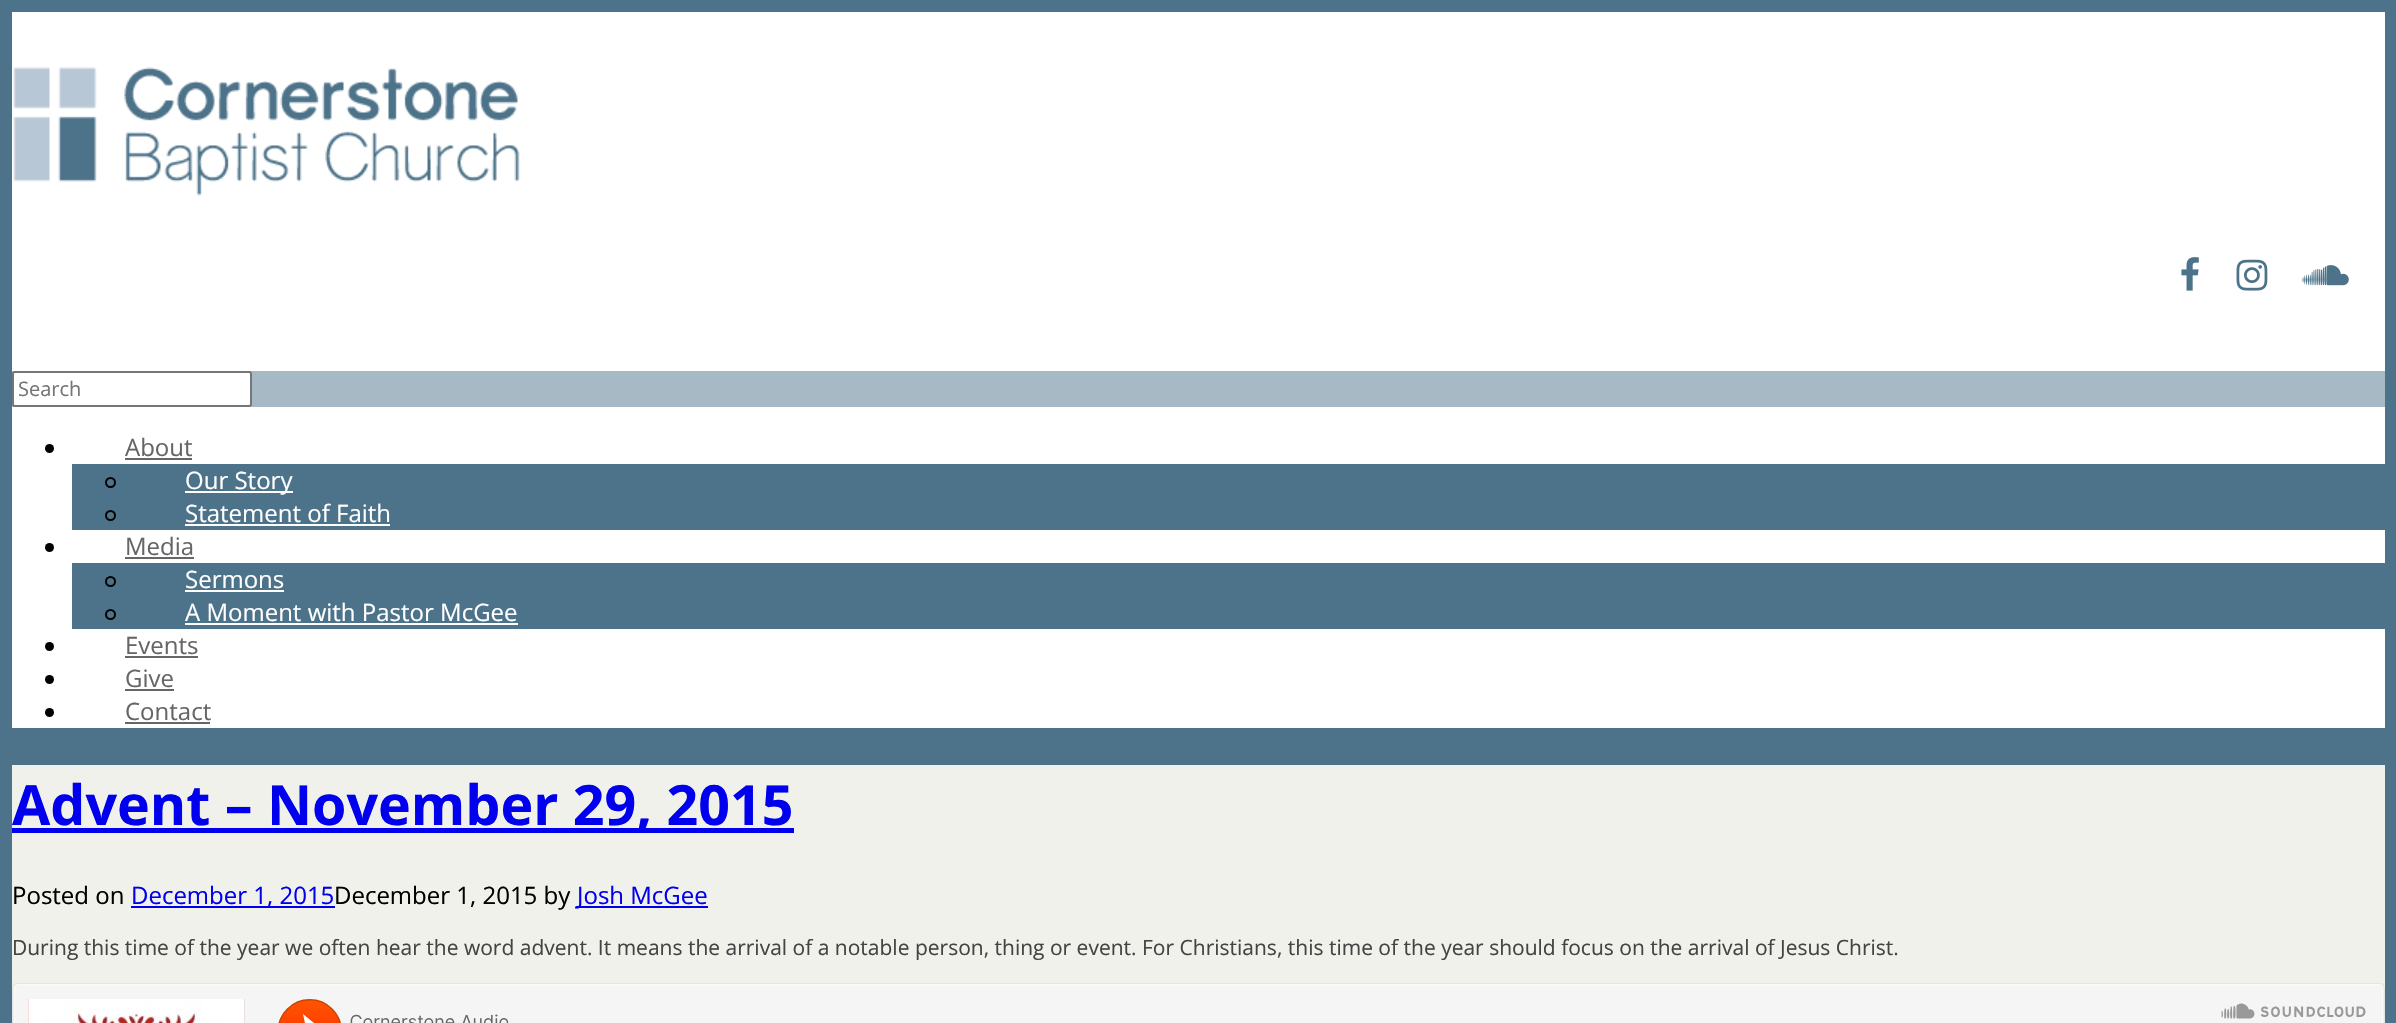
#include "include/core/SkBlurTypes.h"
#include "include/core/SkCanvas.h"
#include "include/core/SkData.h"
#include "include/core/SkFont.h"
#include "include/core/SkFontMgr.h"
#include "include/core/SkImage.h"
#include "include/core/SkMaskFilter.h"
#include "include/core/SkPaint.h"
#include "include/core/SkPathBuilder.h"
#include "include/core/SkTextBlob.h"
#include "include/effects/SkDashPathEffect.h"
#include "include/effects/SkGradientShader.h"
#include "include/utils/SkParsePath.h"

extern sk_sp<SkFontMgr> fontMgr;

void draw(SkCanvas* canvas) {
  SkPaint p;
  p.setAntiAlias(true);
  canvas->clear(SkColorSetRGB(77, 115, 138));
  p.setColor(SK_ColorWHITE);
  canvas->drawRect(SkRect::MakeLTRB(12, 12, 2385, 728), p);
  canvas->drawImageRect(SkImages::DeferredFromEncodedData(SkData::MakeFromFileName("images/1.png")), SkRect::MakeLTRB(13, 67, 520, 196), SkSamplingOptions());
  canvas->drawImageRect(SkImages::DeferredFromEncodedData(SkData::MakeFromFileName("images/2.png")), SkRect::MakeLTRB(2181, 257, 2199, 291), SkSamplingOptions());
  canvas->drawImageRect(SkImages::DeferredFromEncodedData(SkData::MakeFromFileName("images/3.png")), SkRect::MakeLTRB(2236, 259, 2268, 291), SkSamplingOptions());
  canvas->drawImageRect(SkImages::DeferredFromEncodedData(SkData::MakeFromFileName("images/4.png")), SkRect::MakeLTRB(2302, 265, 2349, 286), SkSamplingOptions());
  p.setColor(SkColorSetRGB(166, 185, 196));
  canvas->drawRect(SkRect::MakeLTRB(12, 371, 2385, 407), p);
  p.setColor(SK_ColorWHITE);
  canvas->drawRoundRect(SkRect::MakeLTRB(13, 372, 251, 406), 2, 2, p);
  p.setStyle(SkPaint::kStroke_Style);
  p.setStrokeWidth(2);
  p.setColor(SkColorSetRGB(118, 118, 118));
  canvas->drawRoundRect(SkRect::MakeLTRB(13, 372, 251, 406), 2, 2, p);
  p.setStyle(SkPaint::kFill_Style);
  p.setColor(SK_ColorBLACK);
  canvas->drawCircle(49.5f, 448.5f, 4.5f, p);
  p.setColor(SkColorSetRGB(102, 102, 102));
  canvas->drawRect(SkRect::MakeLTRB(125, 458, 192, 460), p);
  p.setColor(SkColorSetRGB(77, 115, 138));
  canvas->drawRect(SkRect::MakeLTRB(72, 464, 2385, 530), p);
  p.setStyle(SkPaint::kStroke_Style);
  p.setColor(SK_ColorBLACK);
  canvas->drawCircle(110.5f, 482.5f, 4.5f, p);
  p.setStyle(SkPaint::kFill_Style);
  p.setColor(SK_ColorWHITE);
  canvas->drawRect(SkRect::MakeLTRB(185, 491, 293, 493), p);
  p.setStyle(SkPaint::kStroke_Style);
  p.setColor(SK_ColorBLACK);
  canvas->drawCircle(110.5f, 515.5f, 4.5f, p);
  p.setStyle(SkPaint::kFill_Style);
  p.setColor(SK_ColorWHITE);
  canvas->drawRect(SkRect::MakeLTRB(185, 524, 390, 526), p);
  p.setColor(SK_ColorBLACK);
  canvas->drawCircle(49.5f, 547.5f, 4.5f, p);
  p.setColor(SkColorSetRGB(102, 102, 102));
  canvas->drawRect(SkRect::MakeLTRB(125, 557, 194, 559), p);
  p.setColor(SkColorSetRGB(77, 115, 138));
  canvas->drawRect(SkRect::MakeLTRB(72, 563, 2385, 629), p);
  p.setStyle(SkPaint::kStroke_Style);
  p.setColor(SK_ColorBLACK);
  canvas->drawCircle(110.5f, 581.5f, 4.5f, p);
  p.setStyle(SkPaint::kFill_Style);
  p.setColor(SK_ColorWHITE);
  canvas->drawRect(SkRect::MakeLTRB(185, 590, 284, 592), p);
  p.setStyle(SkPaint::kStroke_Style);
  p.setColor(SK_ColorBLACK);
  canvas->drawCircle(110.5f, 614.5f, 4.5f, p);
  p.setStyle(SkPaint::kFill_Style);
  p.setColor(SK_ColorWHITE);
  canvas->drawRect(SkRect::MakeLTRB(185, 623, 518, 625), p);
  p.setColor(SK_ColorBLACK);
  canvas->drawCircle(49.5f, 646.5f, 4.5f, p);
  p.setColor(SkColorSetRGB(102, 102, 102));
  canvas->drawRect(SkRect::MakeLTRB(125, 656, 198, 658), p);
  p.setColor(SK_ColorBLACK);
  canvas->drawCircle(49.5f, 679.5f, 4.5f, p);
  p.setColor(SkColorSetRGB(102, 102, 102));
  canvas->drawRect(SkRect::MakeLTRB(125, 689, 174, 691), p);
  p.setColor(SK_ColorBLACK);
  canvas->drawCircle(49.5f, 712.5f, 4.5f, p);
  p.setColor(SkColorSetRGB(102, 102, 102));
  canvas->drawRect(SkRect::MakeLTRB(125, 722, 210, 724), p);
  p.setColor(SkColorSetRGB(241, 241, 235));
  canvas->drawRect(SkRect::MakeLTRB(12, 765, 2385, 988), p);
  p.setColor(SkColorSetRGB(0, 0, 238));
  canvas->drawRect(SkRect::MakeLTRB(12, 828, 794, 833), p);
  canvas->drawRect(SkRect::MakeLTRB(131, 906, 335, 908), p);
  canvas->drawRect(SkRect::MakeLTRB(576, 906, 708, 908), p);
  canvas->drawImageRect(SkImages::DeferredFromEncodedData(SkData::MakeFromFileName("images/5.png")), SkRect::MakeLTRB(12, 983, 2385, 1023), SkSamplingOptions());
  SkFont font1(fontMgr->matchFamilyStyle("Open Sans", SkFontStyle::Normal()), 20);
  font1.setSubpixel(true);
  p.setColor(SkColorSetRGB(117, 117, 117));
  canvas->drawString("Search", 18, 396, font1, p);
  SkFont font2(fontMgr->matchFamilyStyle("Open Sans", SkFontStyle::Normal()), 24);
  font2.setSubpixel(true);
  p.setColor(SkColorSetRGB(102, 102, 102));
  canvas->drawString("About", 125, 456, font2, p);
  p.setColor(SK_ColorWHITE);
  canvas->drawString("Our Story", 185, 489, font2, p);
  canvas->drawString("Statement of Faith", 185, 522, font2, p);
  p.setColor(SkColorSetRGB(102, 102, 102));
  canvas->drawString("Media", 125, 555, font2, p);
  p.setColor(SK_ColorWHITE);
  canvas->drawString("Sermons", 185, 588, font2, p);
  canvas->drawString("A Moment with Pastor McGee", 185, 621, font2, p);
  p.setColor(SkColorSetRGB(102, 102, 102));
  canvas->drawString("Events", 125, 654, font2, p);
  canvas->drawString("Give", 125, 687, font2, p);
  canvas->drawString("Contact", 125, 720, font2, p);
  SkFont font3(fontMgr->matchFamilyStyle("Open Sans", SkFontStyle::Bold()), 55.5f);
  font3.setSubpixel(true);
  p.setColor(SkColorSetRGB(0, 0, 238));
  canvas->drawString("Advent – November 29, 2015", 12, 825, font3, p);
  p.setColor(SK_ColorBLACK);
  canvas->drawString("Posted on", 12, 904, font2, p);
  p.setColor(SkColorSetRGB(0, 0, 238));
  canvas->drawString("December 1, 2015", 131, 904, font2, p);
  p.setColor(SK_ColorBLACK);
  canvas->drawString("December 1, 2015 by", 334, 904, font2, p);
  p.setColor(SkColorSetRGB(0, 0, 238));
  canvas->drawString("Josh McGee", 577, 904, font2, p);
  SkFont font4(fontMgr->matchFamilyStyle("Open Sans", SkFontStyle::Normal()), 21);
  font4.setSubpixel(true);
  p.setColor(SkColorSetRGB(68, 68, 68));
  canvas->drawString("During this time of the year we often hear the word advent. It means the arrival of a notable person, thing or event. For Christians, this time of the year should focus on the arrival of Jesus Christ.", 12, 955, font4, p);
}
